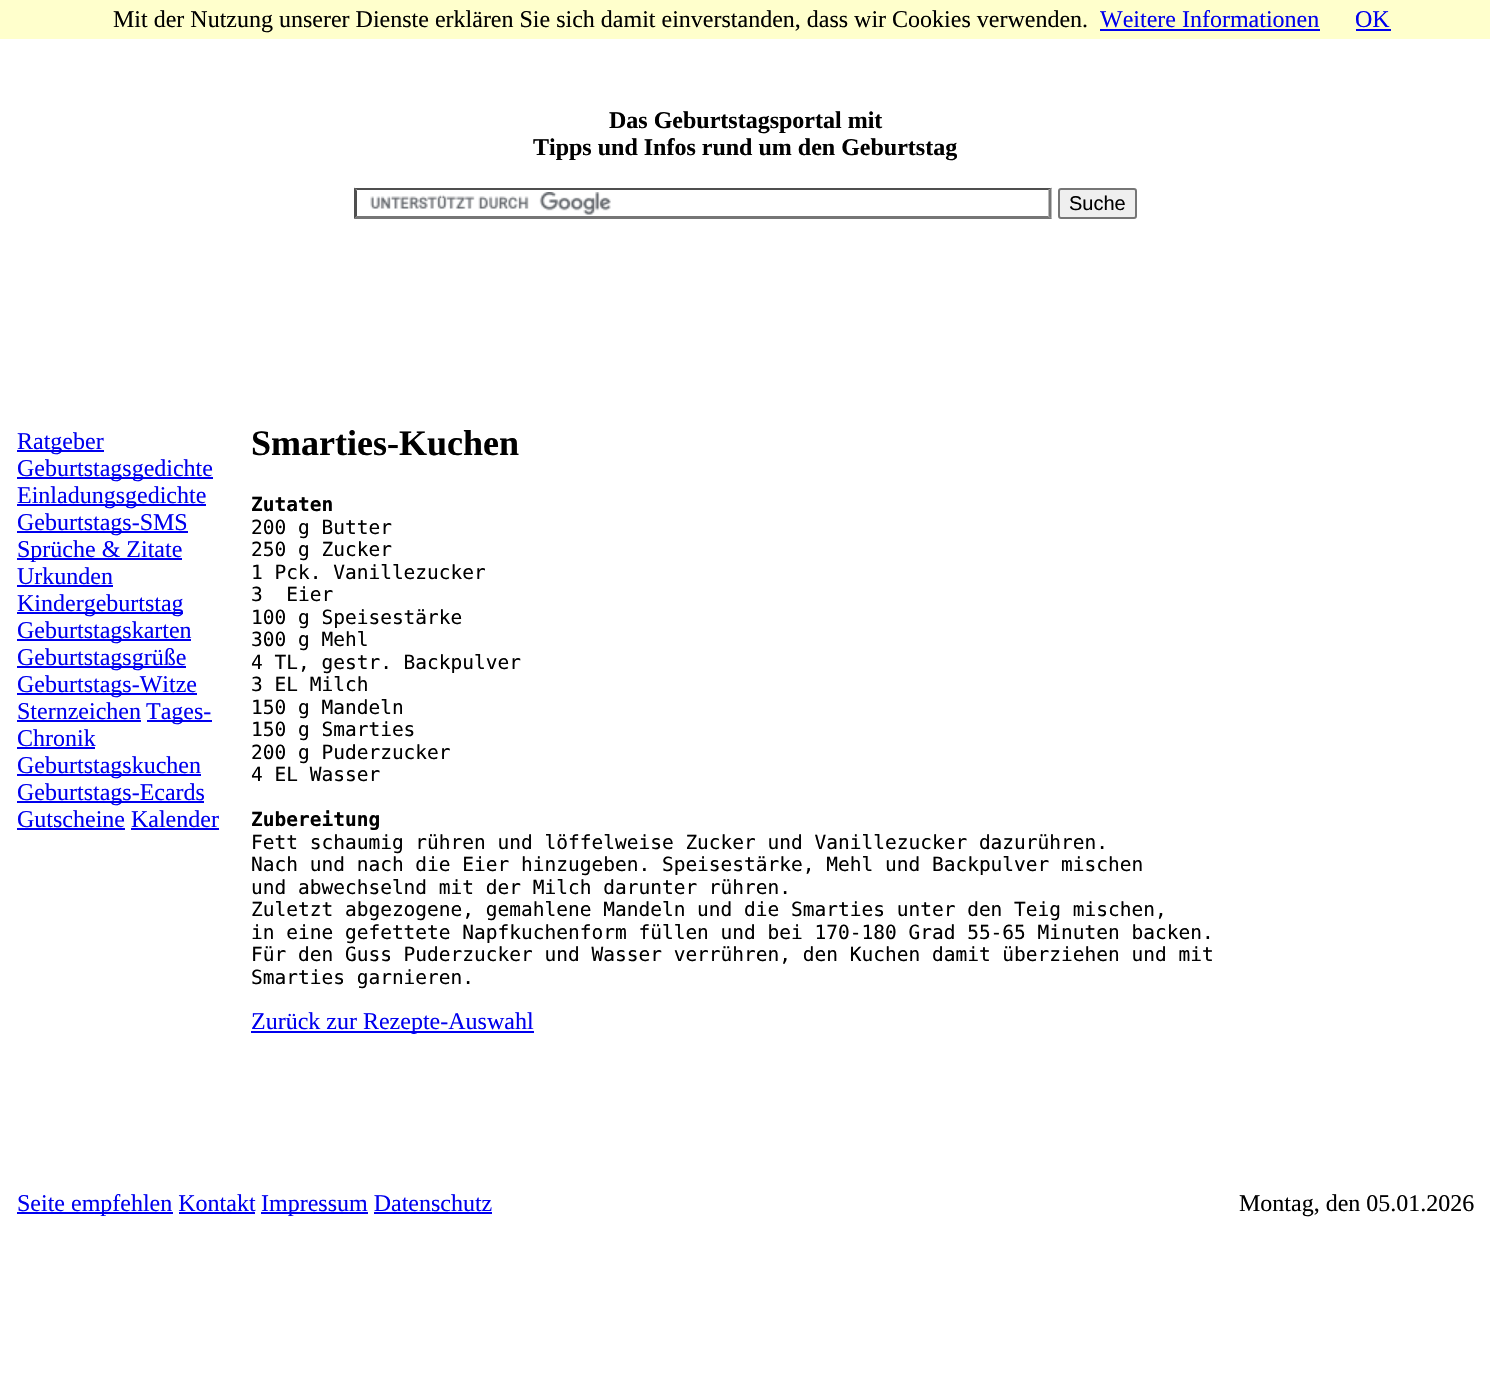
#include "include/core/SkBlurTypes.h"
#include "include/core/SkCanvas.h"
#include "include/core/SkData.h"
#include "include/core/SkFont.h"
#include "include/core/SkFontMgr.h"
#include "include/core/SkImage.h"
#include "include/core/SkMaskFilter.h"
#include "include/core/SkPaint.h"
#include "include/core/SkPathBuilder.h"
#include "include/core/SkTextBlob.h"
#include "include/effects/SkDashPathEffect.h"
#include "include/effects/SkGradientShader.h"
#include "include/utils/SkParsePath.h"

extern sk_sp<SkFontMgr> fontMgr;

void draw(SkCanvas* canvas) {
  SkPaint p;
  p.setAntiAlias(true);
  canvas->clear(SK_ColorWHITE);
  p.setColor(SkColorSetRGB(255, 255, 204));
  canvas->drawRect(SkRect::MakeLTRB(0, 0, 1490, 39), p);
  p.setColor(SkColorSetRGB(0, 0, 238));
  canvas->drawRect(SkRect::MakeLTRB(1100, 29, 1320, 31), p);
  canvas->drawRect(SkRect::MakeLTRB(1356, 29, 1391, 31), p);
  canvas->drawImageRect(SkImages::DeferredFromEncodedData(SkData::MakeFromFileName("images/1.png")), SkRect::MakeLTRB(370, 192, 611, 215), SkSamplingOptions());
  p.setColor(SkColorSetRGB(79, 79, 79));
  canvas->drawPath(SkPathBuilder().moveTo(354, 188).lineTo(1052, 188).lineTo(1048, 190).lineTo(357, 190).close().detach(), p);
  p.setColor(SkColorSetRGB(118, 118, 118));
  canvas->drawPath(SkPathBuilder().moveTo(1051.5f, 187.5f).lineTo(1051.5f, 219).lineTo(1048.5f, 216).lineTo(1048.5f, 190.5f).close().detach(), p);
  canvas->drawPath(SkPathBuilder().moveTo(1052, 219).lineTo(354, 219).lineTo(357, 216).lineTo(1048, 216).close().detach(), p);
  p.setColor(SkColorSetRGB(79, 79, 79));
  canvas->drawPath(SkPathBuilder().moveTo(354, 219).lineTo(354, 187.5f).lineTo(357, 190.5f).lineTo(357, 216).close().detach(), p);
  p.setColor(SkColorSetRGB(239, 239, 239));
  canvas->drawRoundRect(SkRect::MakeLTRB(1059, 189, 1136, 218), 2, 2, p);
  p.setStyle(SkPaint::kStroke_Style);
  p.setStrokeWidth(2);
  p.setColor(SkColorSetRGB(118, 118, 118));
  canvas->drawRoundRect(SkRect::MakeLTRB(1059, 189, 1136, 218), 2, 2, p);
  p.setStyle(SkPaint::kFill_Style);
  p.setColor(SkColorSetRGB(0, 0, 238));
  canvas->drawRect(SkRect::MakeLTRB(17, 450, 104, 452), p);
  canvas->drawRect(SkRect::MakeLTRB(17, 477, 213, 479), p);
  canvas->drawRect(SkRect::MakeLTRB(17, 504, 206, 506), p);
  canvas->drawRect(SkRect::MakeLTRB(17, 531, 188, 533), p);
  canvas->drawRect(SkRect::MakeLTRB(17, 558, 182, 560), p);
  canvas->drawRect(SkRect::MakeLTRB(17, 585, 113, 587), p);
  canvas->drawRect(SkRect::MakeLTRB(17, 612, 183, 614), p);
  canvas->drawRect(SkRect::MakeLTRB(17, 639, 191, 641), p);
  canvas->drawRect(SkRect::MakeLTRB(17, 666, 186, 668), p);
  canvas->drawRect(SkRect::MakeLTRB(17, 693, 197, 695), p);
  canvas->drawRect(SkRect::MakeLTRB(17, 720, 141, 722), p);
  canvas->drawRect(SkRect::MakeLTRB(147, 720, 212, 722), p);
  canvas->drawRect(SkRect::MakeLTRB(17, 747, 95, 749), p);
  canvas->drawRect(SkRect::MakeLTRB(17, 774, 201, 776), p);
  canvas->drawRect(SkRect::MakeLTRB(17, 801, 204, 803), p);
  canvas->drawRect(SkRect::MakeLTRB(17, 828, 125, 830), p);
  canvas->drawRect(SkRect::MakeLTRB(131, 828, 219, 830), p);
  canvas->drawRect(SkRect::MakeLTRB(251, 1031, 534, 1033), p);
  canvas->drawRect(SkRect::MakeLTRB(17, 1212, 173, 1214), p);
  canvas->drawRect(SkRect::MakeLTRB(261, 1212, 368, 1214), p);
  canvas->drawRect(SkRect::MakeLTRB(179, 1212, 255, 1214), p);
  canvas->drawRect(SkRect::MakeLTRB(374, 1212, 492, 1214), p);
  SkFont font1(fontMgr->matchFamilyStyle("Liberation Serif", SkFontStyle::Normal()), 24);
  font1.setSubpixel(true);
  p.setColor(SK_ColorBLACK);
  canvas->drawString("Mit der Nutzung unserer Dienste erklären Sie sich damit einverstanden, dass wir Cookies verwenden.", 113, 27, font1, p);
  p.setColor(SkColorSetRGB(0, 0, 238));
  canvas->drawString("Weitere Informationen", 1100, 27, font1, p);
  canvas->drawString("OK", 1355, 27, font1, p);
  SkFont font2(fontMgr->matchFamilyStyle("Liberation Serif", SkFontStyle::Bold()), 24);
  font2.setSubpixel(true);
  p.setColor(SK_ColorBLACK);
  canvas->drawString("Das Geburtstagsportal mit", 609, 128, font2, p);
  canvas->drawString("Tipps und Infos rund um den Geburtstag", 533, 155, font2, p);
  SkFont font3(fontMgr->matchFamilyStyle("Liberation Sans", SkFontStyle::Normal()), 20);
  font3.setSubpixel(true);
  canvas->drawString("Suche", 1069, 210, font3, p);
  p.setColor(SkColorSetRGB(0, 0, 238));
  canvas->drawString("Ratgeber", 17, 449, font1, p);
  canvas->drawString("Geburtstagsgedichte", 17, 476, font1, p);
  canvas->drawString("Einladungsgedichte", 17, 503, font1, p);
  canvas->drawString("Geburtstags-SMS", 17, 530, font1, p);
  canvas->drawString("Sprüche & Zitate", 17, 557, font1, p);
  canvas->drawString("Urkunden", 17, 584, font1, p);
  canvas->drawString("Kindergeburtstag", 17, 611, font1, p);
  canvas->drawString("Geburtstagskarten", 17, 638, font1, p);
  canvas->drawString("Geburtstagsgrüße", 17, 665, font1, p);
  canvas->drawString("Geburtstags-Witze", 17, 692, font1, p);
  canvas->drawString("Sternzeichen", 17, 719, font1, p);
  canvas->drawString("Tages-", 146, 719, font1, p);
  canvas->drawString("Chronik", 17, 746, font1, p);
  canvas->drawString("Geburtstagskuchen", 17, 773, font1, p);
  canvas->drawString("Geburtstags-Ecards", 17, 800, font1, p);
  canvas->drawString("Gutscheine Kalender", 17, 827, font1, p);
  SkFont font4(fontMgr->matchFamilyStyle("Liberation Serif", SkFontStyle::Bold()), 36);
  font4.setSubpixel(true);
  p.setColor(SK_ColorBLACK);
  canvas->drawString("Smarties-Kuchen", 251, 455, font4, p);
  SkFont font5(fontMgr->matchFamilyStyle("DejaVu Sans Mono", SkFontStyle::Bold()), 19.5f);
  font5.setSubpixel(true);
  canvas->drawString("Zutaten", 251, 511, font5, p);
  SkFont font6(fontMgr->matchFamilyStyle("DejaVu Sans Mono", SkFontStyle::Normal()), 19.5f);
  font6.setSubpixel(true);
  canvas->drawString("200 g Butter", 251, 534, font6, p);
  canvas->drawString("250 g Zucker", 251, 556, font6, p);
  canvas->drawString("1 Pck. Vanillezucker", 251, 579, font6, p);
  canvas->drawString("3  Eier", 251, 601, font6, p);
  canvas->drawString("100 g Speisestärke", 251, 624, font6, p);
  canvas->drawString("300 g Mehl", 251, 646, font6, p);
  canvas->drawString("4 TL, gestr. Backpulver", 251, 669, font6, p);
  canvas->drawString("3 EL Milch", 251, 691, font6, p);
  canvas->drawString("150 g Mandeln", 251, 714, font6, p);
  canvas->drawString("150 g Smarties", 251, 736, font6, p);
  canvas->drawString("200 g Puderzucker", 251, 759, font6, p);
  canvas->drawString("4 EL Wasser", 251, 781, font6, p);
  canvas->drawString("Zubereitung", 251, 826, font5, p);
  canvas->drawString("Fett schaumig rühren und löffelweise Zucker und Vanillezucker dazurühren.", 251, 849, font6, p);
  canvas->drawString("Nach und nach die Eier hinzugeben. Speisestärke, Mehl und Backpulver mischen", 251, 871, font6, p);
  canvas->drawString("und abwechselnd mit der Milch darunter rühren.", 251, 894, font6, p);
  canvas->drawString("Zuletzt abgezogene, gemahlene Mandeln und die Smarties unter den Teig mischen,", 251, 916, font6, p);
  canvas->drawString("in eine gefettete Napfkuchenform füllen und bei 170-180 Grad 55-65 Minuten backen.", 251, 939, font6, p);
  canvas->drawString("Für den Guss Puderzucker und Wasser verrühren, den Kuchen damit überziehen und mit", 251, 961, font6, p);
  canvas->drawString("Smarties garnieren.", 251, 984, font6, p);
  p.setColor(SkColorSetRGB(0, 0, 238));
  canvas->drawString("Zurück zur Rezepte-Auswahl", 251, 1029, font1, p);
  canvas->drawString("Seite empfehlen Kontakt", 17, 1211, font1, p);
  canvas->drawString("Impressum Datenschutz", 261, 1211, font1, p);
  p.setColor(SK_ColorBLACK);
  canvas->drawString("Montag, den 05.01.2026", 1239, 1211, font1, p);
}
